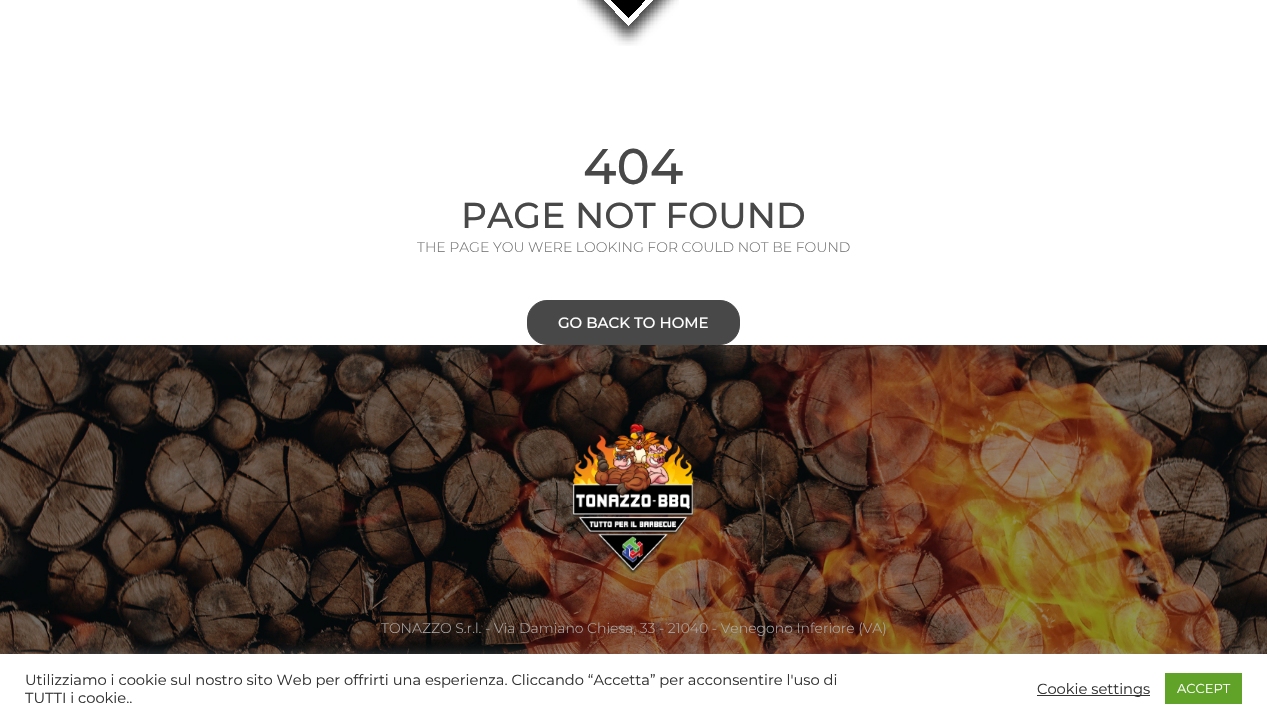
#include "include/core/SkBlurTypes.h"
#include "include/core/SkCanvas.h"
#include "include/core/SkData.h"
#include "include/core/SkFont.h"
#include "include/core/SkFontMgr.h"
#include "include/core/SkImage.h"
#include "include/core/SkMaskFilter.h"
#include "include/core/SkPaint.h"
#include "include/core/SkPathBuilder.h"
#include "include/core/SkTextBlob.h"
#include "include/effects/SkDashPathEffect.h"
#include "include/effects/SkGradientShader.h"
#include "include/utils/SkParsePath.h"

extern sk_sp<SkFontMgr> fontMgr;

void draw(SkCanvas* canvas) {
  SkPaint p;
  p.setAntiAlias(true);
  canvas->clear(SK_ColorWHITE);
  canvas->drawImageRect(SkImages::DeferredFromEncodedData(SkData::MakeFromFileName("images/2.png")), SkRect::MakeLTRB(0, 345, 1267, 654), SkSamplingOptions());
  p.setColor(SkColorSetARGB(184, 58, 58, 58));
  p.setMaskFilter(SkMaskFilter::MakeBlur(kNormal_SkBlurStyle, 15));
  canvas->drawRect(SkRect::MakeLTRB(5, -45, 1262, 340), p);
  p.setMaskFilter(nullptr);
  p.setColor(SK_ColorWHITE);
  canvas->drawRect(SkRect::MakeLTRB(0, 0, 1267, 345), p);
  canvas->drawImageRect(SkImages::DeferredFromEncodedData(SkData::MakeFromFileName("images/1.png")), SkRect::MakeLTRB(577, 0, 679, 46), SkSamplingOptions());
  p.setColor(SkColorSetRGB(72, 72, 72));
  canvas->drawRoundRect(SkRect::MakeLTRB(527.5f, 300.5f, 739.5f, 344.5f), 19.5f, 19.5f, p);
  p.setStyle(SkPaint::kStroke_Style);
  p.setStrokeWidth(1);
  canvas->drawRoundRect(SkRect::MakeLTRB(527.5f, 300.5f, 739.5f, 344.5f), 19.5f, 19.5f, p);
  canvas->drawImageRect(SkImages::DeferredFromEncodedData(SkData::MakeFromFileName("images/3.png")), SkRect::MakeLTRB(572, 423, 694, 574), SkSamplingOptions());
  p.setStyle(SkPaint::kFill_Style);
  p.setColor(SkColorSetARGB(77, 172, 171, 171));
  p.setMaskFilter(SkMaskFilter::MakeBlur(kNormal_SkBlurStyle, 5));
  canvas->drawRect(SkRect::MakeLTRB(0, 653, 1267, 722), p);
  p.setMaskFilter(nullptr);
  p.setColor(SK_ColorWHITE);
  canvas->drawRect(SkRect::MakeLTRB(0, 654, 1267, 723), p);
  p.setColor(SkColorSetRGB(51, 51, 51));
  canvas->drawRect(SkRect::MakeLTRB(1037, 695, 1150, 696), p);
  p.setColor(SkColorSetRGB(97, 162, 41));
  canvas->drawRect(SkRect::MakeLTRB(1165, 673, 1242, 704), p);
  SkFont font1(fontMgr->matchFamilyStyle("Montserrat", SkFontStyle(500, SkFontStyle::kNormal_Width, SkFontStyle::kUpright_Slant)), 50);
  font1.setSubpixel(true);
  p.setColor(SkColorSetRGB(72, 72, 72));
  canvas->drawString("404", 583, 184, font1, p);
  SkFont font2(fontMgr->matchFamilyStyle("Montserrat", SkFontStyle(500, SkFontStyle::kNormal_Width, SkFontStyle::kUpright_Slant)), 36);
  font2.setSubpixel(true);
  canvas->drawString("PAGE NOT FOUND", 461, 228, font2, p);
  SkFont font3(fontMgr->matchFamilyStyle("Montserrat", SkFontStyle(300, SkFontStyle::kNormal_Width, SkFontStyle::kUpright_Slant)), 14);
  font3.setSubpixel(true);
  p.setColor(SkColorSetRGB(115, 115, 115));
  canvas->drawString("THE PAGE YOU WERE LOOKING FOR COULD NOT BE FOUND", 417, 252, font3, p);
  SkFont font4(fontMgr->matchFamilyStyle("Montserrat", SkFontStyle(500, SkFontStyle::kNormal_Width, SkFontStyle::kUpright_Slant)), 15);
  font4.setSubpixel(true);
  p.setColor(SK_ColorWHITE);
  canvas->drawString("GO BACK TO HOME", 558, 328, font4, p);
  p.setColor(SkColorSetRGB(171, 171, 171));
  canvas->drawString("TONAZZO S.r.l. - Via Damiano Chiesa, 33 - 21040 - Venegono Inferiore (VA)", 381, 633, font3, p);
  SkFont font5(fontMgr->matchFamilyStyle("Montserrat", SkFontStyle::Normal()), 14.67f);
  font5.setSubpixel(true);
  p.setColor(SkColorSetRGB(51, 51, 51));
  canvas->drawString("Utilizziamo i cookie sul nostro sito Web per offrirti una esperienza. Cliccando “Accetta” per acconsentire l'uso di", 25, 685, font5, p);
  canvas->drawString("TUTTI i cookie..", 25, 703, font5, p);
  canvas->drawString("Cookie settings", 1037, 694, font5, p);
  SkFont font6(fontMgr->matchFamilyStyle("Montserrat", SkFontStyle::Normal()), 13);
  font6.setSubpixel(true);
  p.setColor(SK_ColorWHITE);
  canvas->drawString("ACCEPT", 1177, 693, font6, p);
}
